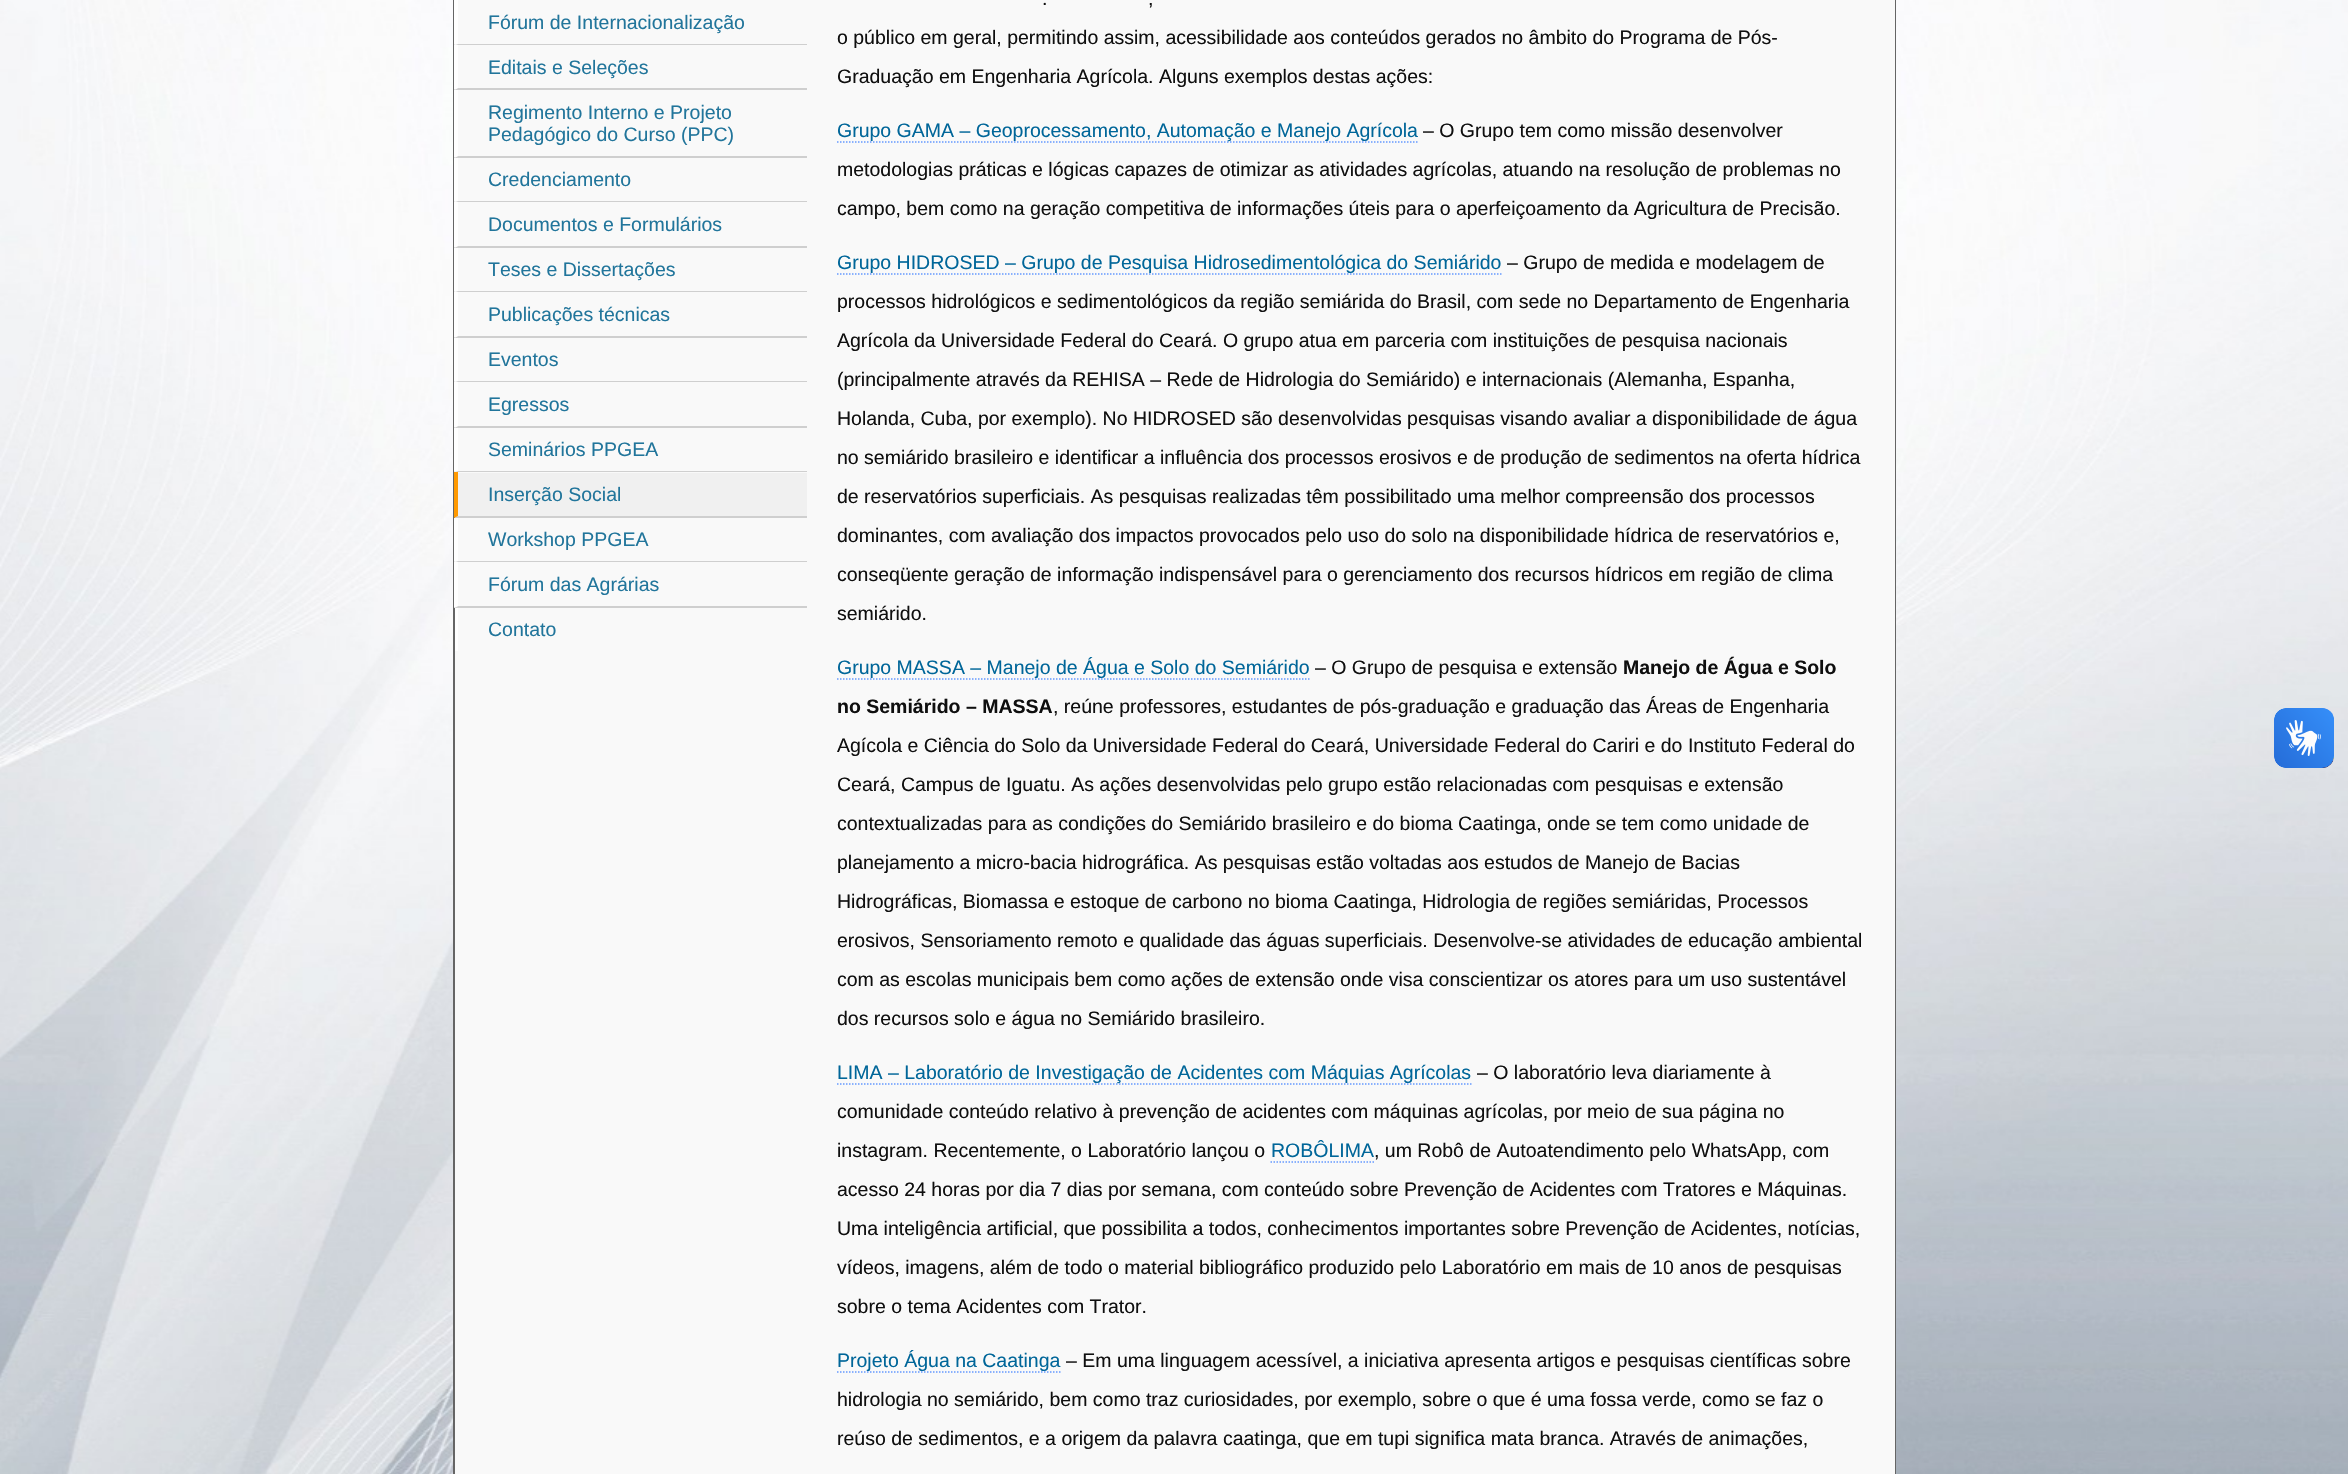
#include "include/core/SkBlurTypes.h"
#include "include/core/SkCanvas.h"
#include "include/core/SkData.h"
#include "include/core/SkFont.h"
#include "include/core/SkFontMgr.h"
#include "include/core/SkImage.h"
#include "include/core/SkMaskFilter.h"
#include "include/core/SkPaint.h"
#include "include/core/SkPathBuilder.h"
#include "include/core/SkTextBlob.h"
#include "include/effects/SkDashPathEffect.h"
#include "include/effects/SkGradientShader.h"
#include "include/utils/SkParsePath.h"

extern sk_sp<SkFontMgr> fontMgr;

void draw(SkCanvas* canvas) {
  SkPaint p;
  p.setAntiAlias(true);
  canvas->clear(SK_ColorWHITE);
  canvas->drawImageRect(SkImages::DeferredFromEncodedData(SkData::MakeFromFileName("images/1.png")), SkRect::MakeLTRB(0, 0, 2348, 1474), SkSamplingOptions());
  p.setStyle(SkPaint::kStroke_Style);
  p.setStrokeWidth(2);
  p.setColor(SkColorSetRGB(101, 101, 101));
  canvas->drawRect(SkRect::MakeLTRB(454, -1, 1895, 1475), p);
  p.setStyle(SkPaint::kFill_Style);
  p.setColor(SkColorSetRGB(249, 249, 249));
  canvas->drawRect(SkRect::MakeLTRB(455, 0, 1895, 1474), p);
  p.setColor(SkColorSetRGB(207, 207, 207));
  canvas->drawPath(SkPathBuilder().moveTo(807, 45).lineTo(454, 45).lineTo(458, 44).lineTo(807, 44).close().detach(), p);
  p.setColor(SK_ColorWHITE);
  canvas->drawPath(SkPathBuilder().moveTo(454, 45).lineTo(454, 0).lineTo(458, 0).lineTo(458, 44).close().detach(), p);
  p.setColor(SkColorSetRGB(207, 207, 207));
  canvas->drawPath(SkPathBuilder().moveTo(807, 90).lineTo(454, 90).lineTo(458, 88).lineTo(807, 88).close().detach(), p);
  p.setColor(SK_ColorWHITE);
  canvas->drawPath(SkPathBuilder().moveTo(454, 90).lineTo(454, 45).lineTo(458, 45).lineTo(458, 88).close().detach(), p);
  p.setColor(SkColorSetRGB(207, 207, 207));
  canvas->drawPath(SkPathBuilder().moveTo(807, 158).lineTo(454, 158).lineTo(458, 156).lineTo(807, 156).close().detach(), p);
  p.setColor(SK_ColorWHITE);
  canvas->drawPath(SkPathBuilder().moveTo(454, 158).lineTo(454, 90).lineTo(458, 90).lineTo(458, 156).close().detach(), p);
  p.setColor(SkColorSetRGB(207, 207, 207));
  canvas->drawPath(SkPathBuilder().moveTo(807, 202).lineTo(454, 202).lineTo(458, 201).lineTo(807, 201).close().detach(), p);
  p.setColor(SK_ColorWHITE);
  canvas->drawPath(SkPathBuilder().moveTo(454, 202).lineTo(454, 158).lineTo(458, 158).lineTo(458, 201).close().detach(), p);
  p.setColor(SkColorSetRGB(207, 207, 207));
  canvas->drawPath(SkPathBuilder().moveTo(807, 248).lineTo(454, 248).lineTo(458, 246).lineTo(807, 246).close().detach(), p);
  p.setColor(SK_ColorWHITE);
  canvas->drawPath(SkPathBuilder().moveTo(454, 248).lineTo(454, 202).lineTo(458, 202).lineTo(458, 246).close().detach(), p);
  p.setColor(SkColorSetRGB(207, 207, 207));
  canvas->drawPath(SkPathBuilder().moveTo(807, 292).lineTo(454, 292).lineTo(458, 291).lineTo(807, 291).close().detach(), p);
  p.setColor(SK_ColorWHITE);
  canvas->drawPath(SkPathBuilder().moveTo(454, 292).lineTo(454, 248).lineTo(458, 248).lineTo(458, 291).close().detach(), p);
  p.setColor(SkColorSetRGB(207, 207, 207));
  canvas->drawPath(SkPathBuilder().moveTo(807, 338).lineTo(454, 338).lineTo(458, 336).lineTo(807, 336).close().detach(), p);
  p.setColor(SK_ColorWHITE);
  canvas->drawPath(SkPathBuilder().moveTo(454, 338).lineTo(454, 292).lineTo(458, 292).lineTo(458, 336).close().detach(), p);
  p.setColor(SkColorSetRGB(207, 207, 207));
  canvas->drawPath(SkPathBuilder().moveTo(807, 382).lineTo(454, 382).lineTo(458, 381).lineTo(807, 381).close().detach(), p);
  p.setColor(SK_ColorWHITE);
  canvas->drawPath(SkPathBuilder().moveTo(454, 382).lineTo(454, 338).lineTo(458, 338).lineTo(458, 381).close().detach(), p);
  p.setColor(SkColorSetRGB(207, 207, 207));
  canvas->drawPath(SkPathBuilder().moveTo(807, 428).lineTo(454, 428).lineTo(458, 426).lineTo(807, 426).close().detach(), p);
  p.setColor(SK_ColorWHITE);
  canvas->drawPath(SkPathBuilder().moveTo(454, 428).lineTo(454, 382).lineTo(458, 382).lineTo(458, 426).close().detach(), p);
  p.setColor(SkColorSetRGB(207, 207, 207));
  canvas->drawPath(SkPathBuilder().moveTo(807, 472).lineTo(454, 472).lineTo(458, 471).lineTo(807, 471).close().detach(), p);
  p.setColor(SK_ColorWHITE);
  canvas->drawPath(SkPathBuilder().moveTo(454, 472).lineTo(454, 428).lineTo(458, 428).lineTo(458, 471).close().detach(), p);
  p.setColor(SkColorSetRGB(240, 240, 240));
  canvas->drawRect(SkRect::MakeLTRB(455, 473, 807, 518), p);
  p.setColor(SkColorSetRGB(207, 207, 207));
  canvas->drawPath(SkPathBuilder().moveTo(807, 518).lineTo(454, 518).lineTo(458, 516).lineTo(807, 516).close().detach(), p);
  p.setColor(SkColorSetRGB(255, 153, 0));
  canvas->drawPath(SkPathBuilder().moveTo(454, 518).lineTo(454, 472).lineTo(458, 472).lineTo(458, 516).close().detach(), p);
  p.setColor(SkColorSetRGB(207, 207, 207));
  canvas->drawPath(SkPathBuilder().moveTo(807, 562).lineTo(454, 562).lineTo(458, 561).lineTo(807, 561).close().detach(), p);
  p.setColor(SK_ColorWHITE);
  canvas->drawPath(SkPathBuilder().moveTo(454, 562).lineTo(454, 518).lineTo(458, 518).lineTo(458, 561).close().detach(), p);
  p.setColor(SkColorSetRGB(207, 207, 207));
  canvas->drawPath(SkPathBuilder().moveTo(807, 608).lineTo(454, 608).lineTo(458, 606).lineTo(807, 606).close().detach(), p);
  p.setColor(SK_ColorWHITE);
  canvas->drawPath(SkPathBuilder().moveTo(454, 608).lineTo(454, 562).lineTo(458, 562).lineTo(458, 606).close().detach(), p);
  canvas->drawRect(SkRect::MakeLTRB(455, 608, 458, 651), p);
  p.setStyle(SkPaint::kStroke_Style);
  p.setStrokeWidth(1.5f);
  p.setColor(SkColorSetRGB(102, 153, 255));
  p.setPathEffect(SkDashPathEffect::Make({{1.5f, 1.5f}}, 0));
  canvas->drawPath(SkPathBuilder().moveTo(837, 142).lineTo(1417.5f, 142).detach(), p);
  p.setPathEffect(nullptr);
  p.setPathEffect(SkDashPathEffect::Make({{1.5f, 1.5f}}, 0));
  canvas->drawPath(SkPathBuilder().moveTo(837, 274).lineTo(1501.5f, 274).detach(), p);
  p.setPathEffect(nullptr);
  p.setPathEffect(SkDashPathEffect::Make({{1.5f, 1.5f}}, 0));
  canvas->drawPath(SkPathBuilder().moveTo(837, 679).lineTo(1309.5f, 679).detach(), p);
  p.setPathEffect(nullptr);
  p.setPathEffect(SkDashPathEffect::Make({{1.5f, 1.5f}}, 0));
  canvas->drawPath(SkPathBuilder().moveTo(837, 1084).lineTo(1471.5f, 1084).detach(), p);
  p.setPathEffect(nullptr);
  p.setPathEffect(SkDashPathEffect::Make({{1.5f, 1.5f}}, 0));
  canvas->drawPath(SkPathBuilder().moveTo(1270.5f, 1162).lineTo(1374, 1162).detach(), p);
  p.setPathEffect(nullptr);
  p.setPathEffect(SkDashPathEffect::Make({{1.5f, 1.5f}}, 0));
  canvas->drawPath(SkPathBuilder().moveTo(837, 1372).lineTo(1060.5f, 1372).detach(), p);
  p.setPathEffect(nullptr);
  canvas->drawImageRect(SkImages::DeferredFromEncodedData(SkData::MakeFromFileName("images/2.png")), SkRect::MakeLTRB(2274, 708, 2334, 768), SkSamplingOptions());
  canvas->drawImageRect(SkImages::DeferredFromEncodedData(SkData::MakeFromFileName("images/3.png")), SkRect::MakeLTRB(2274, 708, 2334, 768), SkSamplingOptions());
  SkFont font1(fontMgr->matchFamilyStyle("Liberation Sans", SkFontStyle::Normal()), 19.5f);
  font1.setSubpixel(true);
  p.setStyle(SkPaint::kFill_Style);
  p.setColor(SkColorSetRGB(33, 117, 155));
  canvas->drawString("Fórum de Internacionalização", 488, 29, font1, p);
  canvas->drawString("Editais e Seleções", 488, 74, font1, p);
  canvas->drawString("Regimento Interno e Projeto", 488, 119, font1, p);
  canvas->drawString("Pedagógico do Curso (PPC)", 488, 141, font1, p);
  canvas->drawString("Credenciamento", 488, 186, font1, p);
  canvas->drawString("Documentos e Formulários", 488, 231, font1, p);
  canvas->drawString("Teses e Dissertações", 488, 276, font1, p);
  canvas->drawString("Publicações técnicas", 488, 321, font1, p);
  canvas->drawString("Eventos", 488, 366, font1, p);
  canvas->drawString("Egressos", 488, 411, font1, p);
  canvas->drawString("Seminários PPGEA", 488, 456, font1, p);
  canvas->drawString("Inserção Social", 488, 501, font1, p);
  canvas->drawString("Workshop PPGEA", 488, 546, font1, p);
  canvas->drawString("Fórum das Agrárias", 488, 591, font1, p);
  canvas->drawString("Contato", 488, 636, font1, p);
  p.setColor(SkColorSetRGB(15, 15, 15));
  canvas->drawString(".", 1042, 5, font1, p);
  canvas->drawString(",", 1148, 5, font1, p);
  canvas->drawString("o público em geral, permitindo assim, acessibilidade aos conteúdos gerados no âmbito do Programa de Pós-", 837, 44, font1, p);
  canvas->drawString("Graduação em Engenharia Agrícola. Alguns exemplos destas ações:", 837, 83, font1, p);
  p.setColor(SkColorSetRGB(0, 102, 153));
  canvas->drawString("Grupo GAMA – Geoprocessamento, Automação e Manejo Agrícola", 837, 137, font1, p);
  p.setColor(SkColorSetRGB(15, 15, 15));
  canvas->drawString("– O Grupo tem como missão desenvolver", 1423, 137, font1, p);
  canvas->drawString("metodologias práticas e lógicas capazes de otimizar as atividades agrícolas, atuando na resolução de problemas no", 837, 176, font1, p);
  canvas->drawString("campo, bem como na geração competitiva de informações úteis para o aperfeiçoamento da Agricultura de Precisão.", 837, 215, font1, p);
  p.setColor(SkColorSetRGB(0, 102, 153));
  canvas->drawString("Grupo HIDROSED – Grupo de Pesquisa Hidrosedimentológica do Semiárido", 837, 269, font1, p);
  p.setColor(SkColorSetRGB(15, 15, 15));
  canvas->drawString("– Grupo de medida e modelagem de", 1507, 269, font1, p);
  canvas->drawString("processos hidrológicos e sedimentológicos da região semiárida do Brasil, com sede no Departamento de Engenharia", 837, 308, font1, p);
  canvas->drawString("Agrícola da Universidade Federal do Ceará. O grupo atua em parceria com instituições de pesquisa nacionais", 837, 347, font1, p);
  canvas->drawString("(principalmente através da REHISA – Rede de Hidrologia do Semiárido) e internacionais (Alemanha, Espanha,", 837, 386, font1, p);
  canvas->drawString("Holanda, Cuba, por exemplo). No HIDROSED são desenvolvidas pesquisas visando avaliar a disponibilidade de água", 837, 425, font1, p);
  canvas->drawString("no semiárido brasileiro e identificar a influência dos processos erosivos e de produção de sedimentos na oferta hídrica", 837, 464, font1, p);
  canvas->drawString("de reservatórios superficiais. As pesquisas realizadas têm possibilitado uma melhor compreensão dos processos", 837, 503, font1, p);
  canvas->drawString("dominantes, com avaliação dos impactos provocados pelo uso do solo na disponibilidade hídrica de reservatórios e,", 837, 542, font1, p);
  canvas->drawString("conseqüente geração de informação indispensável para o gerenciamento dos recursos hídricos em região de clima", 837, 581, font1, p);
  canvas->drawString("semiárido.", 837, 620, font1, p);
  p.setColor(SkColorSetRGB(0, 102, 153));
  canvas->drawString("Grupo MASSA – Manejo de Água e Solo do Semiárido", 837, 674, font1, p);
  p.setColor(SkColorSetRGB(15, 15, 15));
  canvas->drawString("– O Grupo de pesquisa e extensão", 1315, 674, font1, p);
  SkFont font2(fontMgr->matchFamilyStyle("Liberation Sans", SkFontStyle::Bold()), 19.5f);
  font2.setSubpixel(true);
  canvas->drawString("Manejo de Água e Solo", 1623, 674, font2, p);
  canvas->drawString("no Semiárido – MASSA", 837, 713, font2, p);
  canvas->drawString(", reúne professores, estudantes de pós-graduação e graduação das Áreas de Engenharia", 1053, 713, font1, p);
  canvas->drawString("Agícola e Ciência do Solo da Universidade Federal do Ceará, Universidade Federal do Cariri e do Instituto Federal do", 837, 752, font1, p);
  canvas->drawString("Ceará, Campus de Iguatu. As ações desenvolvidas pelo grupo estão relacionadas com pesquisas e extensão", 837, 791, font1, p);
  canvas->drawString("contextualizadas para as condições do Semiárido brasileiro e do bioma Caatinga, onde se tem como unidade de", 837, 830, font1, p);
  canvas->drawString("planejamento a micro-bacia hidrográfica. As pesquisas estão voltadas aos estudos de Manejo de Bacias", 837, 869, font1, p);
  canvas->drawString("Hidrográficas, Biomassa e estoque de carbono no bioma Caatinga, Hidrologia de regiões semiáridas, Processos", 837, 908, font1, p);
  canvas->drawString("erosivos, Sensoriamento remoto e qualidade das águas superficiais. Desenvolve-se atividades de educação ambiental", 837, 947, font1, p);
  canvas->drawString("com as escolas municipais bem como ações de extensão onde visa conscientizar os atores para um uso sustentável", 837, 986, font1, p);
  canvas->drawString("dos recursos solo e água no Semiárido brasileiro.", 837, 1025, font1, p);
  p.setColor(SkColorSetRGB(0, 102, 153));
  canvas->drawString("LIMA – Laboratório de Investigação de Acidentes com Máquias Agrícolas", 837, 1079, font1, p);
  p.setColor(SkColorSetRGB(15, 15, 15));
  canvas->drawString("– O laboratório leva diariamente à", 1477, 1079, font1, p);
  canvas->drawString("comunidade conteúdo relativo à prevenção de acidentes com máquinas agrícolas, por meio de sua página no", 837, 1118, font1, p);
  canvas->drawString("instagram. Recentemente, o Laboratório lançou o", 837, 1157, font1, p);
  p.setColor(SkColorSetRGB(0, 102, 153));
  canvas->drawString("ROBÔLIMA", 1271, 1157, font1, p);
  p.setColor(SkColorSetRGB(15, 15, 15));
  canvas->drawString(", um Robô de Autoatendimento pelo WhatsApp, com", 1374, 1157, font1, p);
  canvas->drawString("acesso 24 horas por dia 7 dias por semana, com conteúdo sobre Prevenção de Acidentes com Tratores e Máquinas.", 837, 1196, font1, p);
  canvas->drawString("Uma inteligência artificial, que possibilita a todos, conhecimentos importantes sobre Prevenção de Acidentes, notícias,", 837, 1235, font1, p);
  canvas->drawString("vídeos, imagens, além de todo o material bibliográfico produzido pelo Laboratório em mais de 10 anos de pesquisas", 837, 1274, font1, p);
  canvas->drawString("sobre o tema Acidentes com Trator.", 837, 1313, font1, p);
  p.setColor(SkColorSetRGB(0, 102, 153));
  canvas->drawString("Projeto Água na Caatinga", 837, 1367, font1, p);
  p.setColor(SkColorSetRGB(15, 15, 15));
  canvas->drawString("– Em uma linguagem acessível, a iniciativa apresenta artigos e pesquisas científicas sobre", 1066, 1367, font1, p);
  canvas->drawString("hidrologia no semiárido, bem como traz curiosidades, por exemplo, sobre o que é uma fossa verde, como se faz o", 837, 1406, font1, p);
  canvas->drawString("reúso de sedimentos, e a origem da palavra caatinga, que em tupi significa mata branca. Através de animações,", 837, 1445, font1, p);
}
